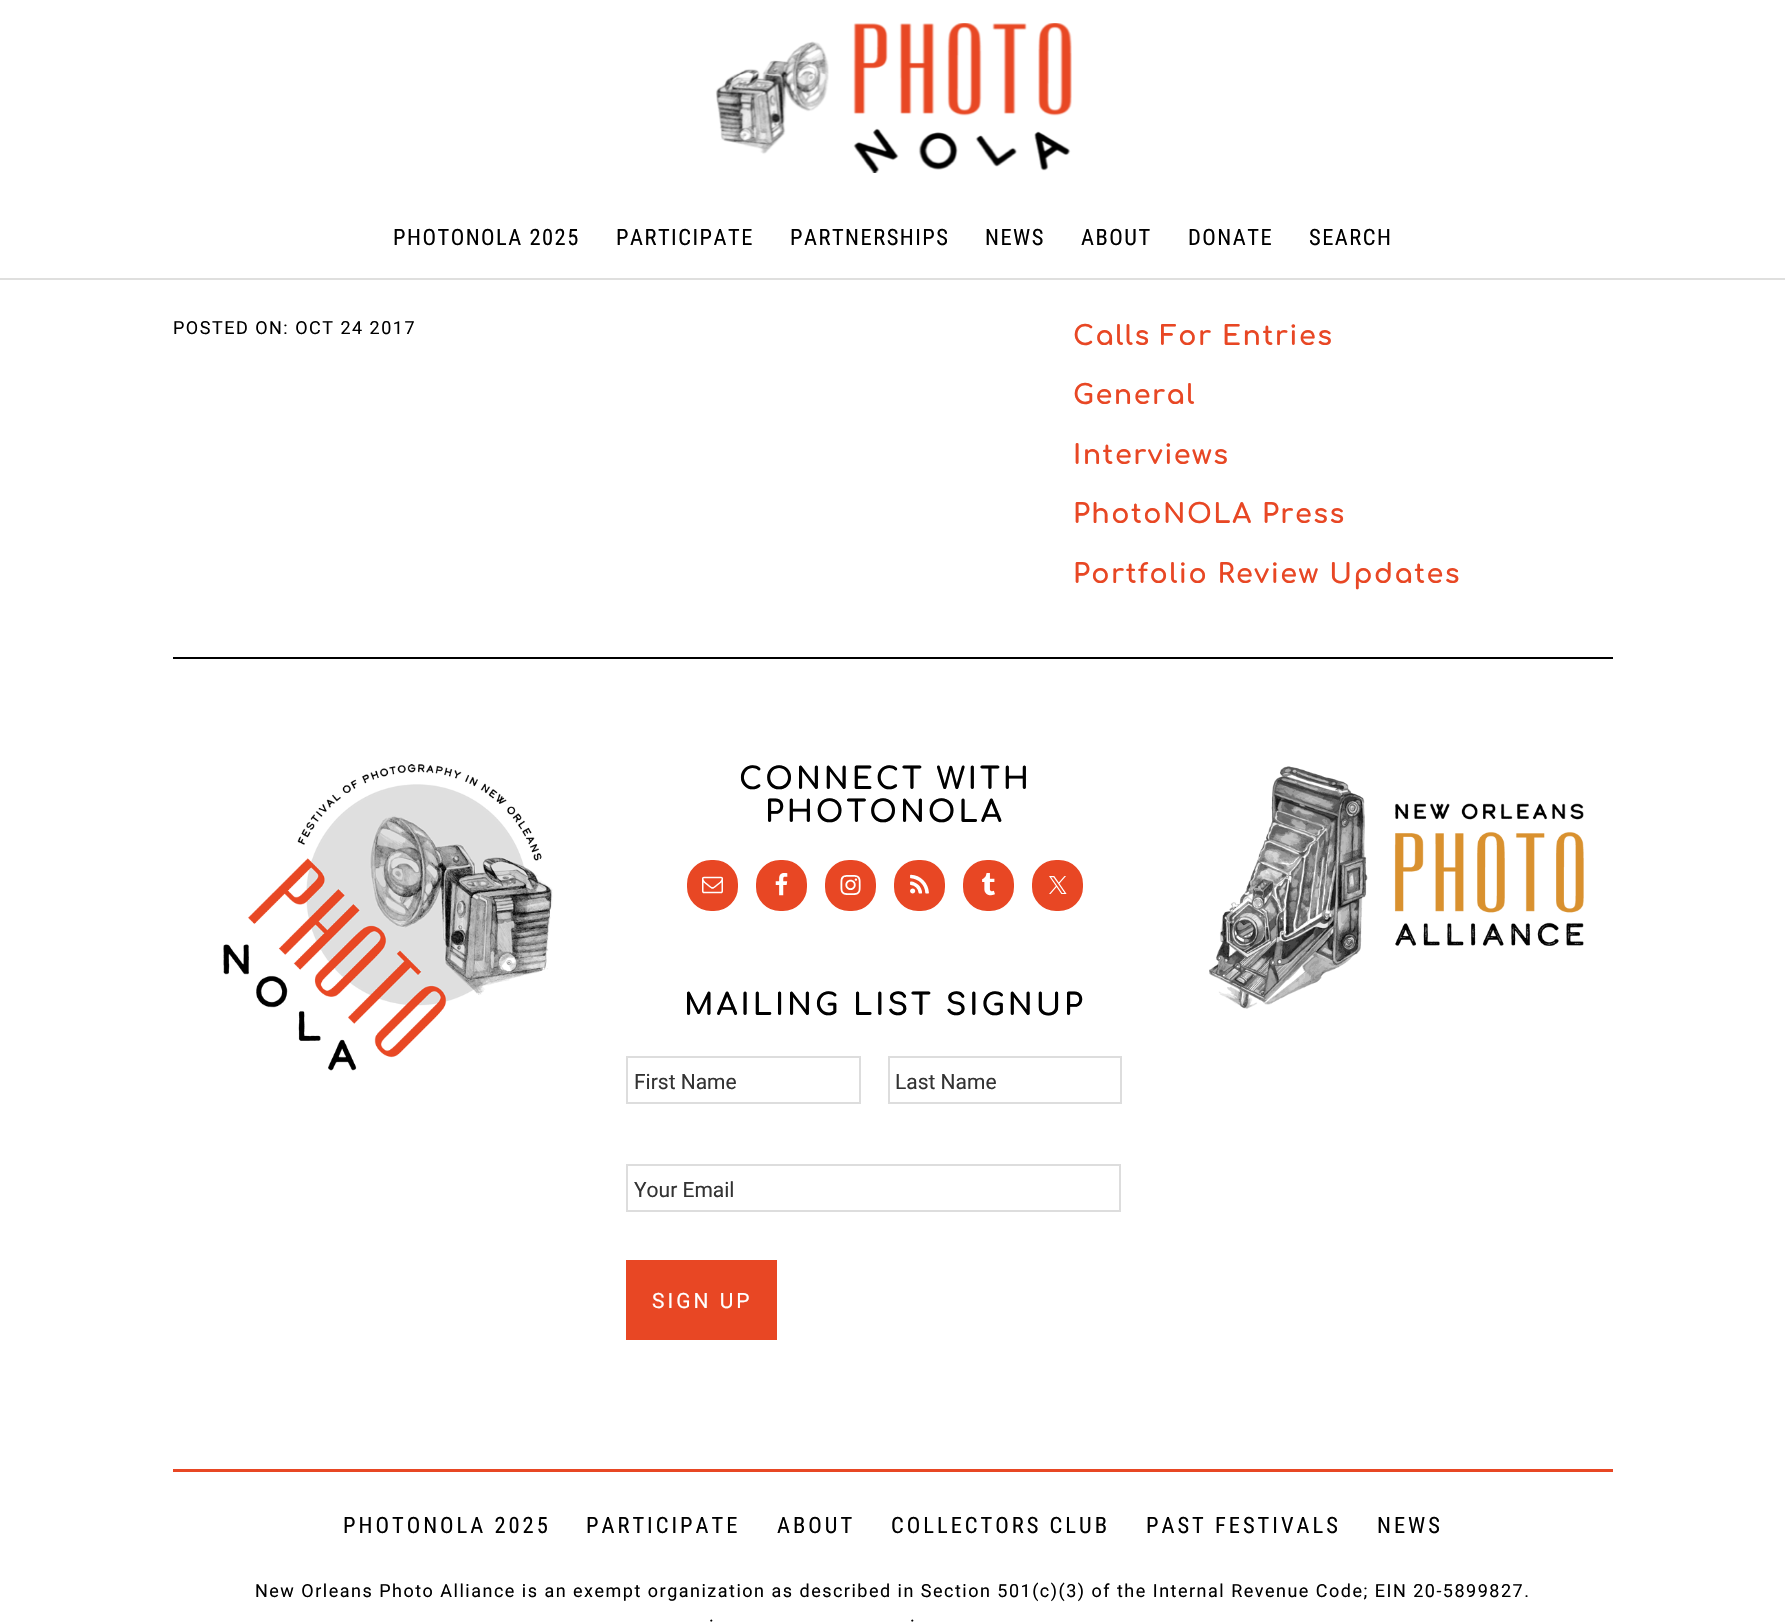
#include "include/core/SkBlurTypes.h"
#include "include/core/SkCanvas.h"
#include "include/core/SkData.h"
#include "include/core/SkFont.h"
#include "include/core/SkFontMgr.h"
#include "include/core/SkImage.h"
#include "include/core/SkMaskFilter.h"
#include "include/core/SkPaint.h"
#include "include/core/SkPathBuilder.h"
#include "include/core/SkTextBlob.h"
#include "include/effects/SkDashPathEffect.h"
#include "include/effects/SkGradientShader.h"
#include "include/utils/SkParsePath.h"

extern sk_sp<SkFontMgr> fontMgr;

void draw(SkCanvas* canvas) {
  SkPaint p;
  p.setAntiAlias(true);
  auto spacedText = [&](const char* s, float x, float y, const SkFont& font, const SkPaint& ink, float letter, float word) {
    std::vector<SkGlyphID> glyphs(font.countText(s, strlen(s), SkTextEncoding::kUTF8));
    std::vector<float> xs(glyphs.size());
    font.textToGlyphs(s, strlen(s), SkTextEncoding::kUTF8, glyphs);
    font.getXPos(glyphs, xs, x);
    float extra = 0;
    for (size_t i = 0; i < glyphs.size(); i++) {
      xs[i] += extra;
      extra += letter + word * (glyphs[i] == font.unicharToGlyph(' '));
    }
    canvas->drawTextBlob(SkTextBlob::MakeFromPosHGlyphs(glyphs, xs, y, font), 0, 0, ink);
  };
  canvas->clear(SK_ColorWHITE);
  p.setColor(SkColorSetRGB(223, 223, 222));
  canvas->drawRect(SkRect::MakeLTRB(0, 278, 1785, 280), p);
  canvas->drawImageRect(SkImages::DeferredFromEncodedData(SkData::MakeFromFileName("images/1.png")), SkRect::MakeLTRB(715, 23, 1072, 173), SkSamplingOptions());
  p.setColor(SK_ColorBLACK);
  canvas->drawRect(SkRect::MakeLTRB(173, 657, 1613, 659), p);
  canvas->drawImageRect(SkImages::DeferredFromEncodedData(SkData::MakeFromFileName("images/2.png")), SkRect::MakeLTRB(223, 764, 553, 1071), SkSamplingOptions());
  p.setColor(SkColorSetRGB(232, 71, 36));
  canvas->drawRoundRect(SkRect::MakeLTRB(688, 861, 737, 910), 23, 23, p);
  p.setStyle(SkPaint::kStroke_Style);
  p.setStrokeWidth(2);
  canvas->drawRoundRect(SkRect::MakeLTRB(688, 861, 737, 910), 23, 23, p);
  canvas->drawImageRect(SkImages::DeferredFromEncodedData(SkData::MakeFromFileName("images/3.png")), SkRect::MakeLTRB(702, 876, 723, 894), SkSamplingOptions());
  p.setStyle(SkPaint::kFill_Style);
  canvas->drawRoundRect(SkRect::MakeLTRB(757, 861, 806, 910), 23, 23, p);
  p.setStyle(SkPaint::kStroke_Style);
  canvas->drawRoundRect(SkRect::MakeLTRB(757, 861, 806, 910), 23, 23, p);
  canvas->drawImageRect(SkImages::DeferredFromEncodedData(SkData::MakeFromFileName("images/4.png")), SkRect::MakeLTRB(775, 873, 788, 896), SkSamplingOptions());
  p.setStyle(SkPaint::kFill_Style);
  canvas->drawRoundRect(SkRect::MakeLTRB(826, 861, 875, 910), 23, 23, p);
  p.setStyle(SkPaint::kStroke_Style);
  canvas->drawRoundRect(SkRect::MakeLTRB(826, 861, 875, 910), 23, 23, p);
  canvas->drawImageRect(SkImages::DeferredFromEncodedData(SkData::MakeFromFileName("images/5.png")), SkRect::MakeLTRB(840, 875, 861, 895), SkSamplingOptions());
  p.setStyle(SkPaint::kFill_Style);
  canvas->drawRoundRect(SkRect::MakeLTRB(895, 861, 944, 910), 23, 23, p);
  p.setStyle(SkPaint::kStroke_Style);
  canvas->drawRoundRect(SkRect::MakeLTRB(895, 861, 944, 910), 23, 23, p);
  canvas->drawImageRect(SkImages::DeferredFromEncodedData(SkData::MakeFromFileName("images/6.png")), SkRect::MakeLTRB(910, 874, 929, 894), SkSamplingOptions());
  p.setStyle(SkPaint::kFill_Style);
  canvas->drawRoundRect(SkRect::MakeLTRB(964, 861, 1013, 910), 23, 23, p);
  p.setStyle(SkPaint::kStroke_Style);
  canvas->drawRoundRect(SkRect::MakeLTRB(964, 861, 1013, 910), 23, 23, p);
  canvas->drawImageRect(SkImages::DeferredFromEncodedData(SkData::MakeFromFileName("images/7.png")), SkRect::MakeLTRB(982, 873, 995, 896), SkSamplingOptions());
  p.setStyle(SkPaint::kFill_Style);
  canvas->drawRoundRect(SkRect::MakeLTRB(1033, 861, 1082, 910), 23, 23, p);
  p.setStyle(SkPaint::kStroke_Style);
  canvas->drawRoundRect(SkRect::MakeLTRB(1033, 861, 1082, 910), 23, 23, p);
  canvas->drawImageRect(SkImages::DeferredFromEncodedData(SkData::MakeFromFileName("images/8.png")), SkRect::MakeLTRB(1049, 876, 1067, 894), SkSamplingOptions());
  p.setColor(SkColorSetRGB(221, 221, 221));
  canvas->drawRect(SkRect::MakeLTRB(627, 1057, 860, 1103), p);
  canvas->drawRect(SkRect::MakeLTRB(889, 1057, 1121, 1103), p);
  canvas->drawRect(SkRect::MakeLTRB(627, 1165, 1120, 1211), p);
  p.setStyle(SkPaint::kFill_Style);
  p.setColor(SkColorSetRGB(232, 71, 36));
  canvas->drawRect(SkRect::MakeLTRB(626, 1260, 777, 1340), p);
  canvas->drawImageRect(SkImages::DeferredFromEncodedData(SkData::MakeFromFileName("images/9.png")), SkRect::MakeLTRB(1209, 766, 1584, 1009), SkSamplingOptions());
  canvas->drawRect(SkRect::MakeLTRB(173, 1469, 1613, 1472), p);
  SkFont font1(fontMgr->matchFamilyStyle("Roboto Condensed", SkFontStyle::Normal()), 22.5f);
  font1.setSubpixel(true);
  p.setColor(SK_ColorBLACK);
  spacedText("PHOTONOLA 2025", 393, 245, font1, p, 1.5f, 0);
  spacedText("PARTICIPATE", 616, 245, font1, p, 1.5f, 0);
  spacedText("PARTNERSHIPS", 790, 245, font1, p, 1.5f, 0);
  spacedText("NEWS", 985, 245, font1, p, 1.5f, 0);
  spacedText("ABOUT", 1081, 245, font1, p, 1.5f, 0);
  spacedText("DONATE", 1188, 245, font1, p, 1.5f, 0);
  spacedText("SEARCH", 1309, 245, font1, p, 1.5f, 0);
  SkFont font2(fontMgr->matchFamilyStyle("Roboto", SkFontStyle::Normal()), 18);
  font2.setSubpixel(true);
  spacedText("POSTED ON: OCT 24 2017", 173, 334, font2, p, 1.5f, 0);
  SkFont font3(fontMgr->matchFamilyStyle("Comfortaa", SkFontStyle::Bold()), 27);
  font3.setSubpixel(true);
  p.setColor(SkColorSetRGB(232, 71, 36));
  spacedText("Calls For Entries", 1073, 345, font3, p, 1.5f, 0);
  spacedText("General", 1073, 404, font3, p, 1.5f, 0);
  spacedText("Interviews", 1073, 464, font3, p, 1.5f, 0);
  spacedText("PhotoNOLA Press", 1073, 523, font3, p, 1.5f, 0);
  spacedText("Portfolio Review Updates", 1073, 583, font3, p, 1.5f, 0);
  SkFont font4(fontMgr->matchFamilyStyle("Comfortaa", SkFontStyle::Bold()), 30);
  font4.setSubpixel(true);
  p.setColor(SK_ColorBLACK);
  spacedText("CONNECT WITH", 739, 789, font4, p, 3, 0);
  spacedText("PHOTONOLA", 765, 822, font4, p, 3, 0);
  spacedText("MAILING LIST SIGNUP", 684, 1015, font4, p, 3, 0);
  SkFont font5(fontMgr->matchFamilyStyle("Roboto", SkFontStyle::Normal()), 21);
  font5.setSubpixel(true);
  p.setColor(SkColorSetRGB(51, 51, 51));
  canvas->drawString("First Name", 634, 1089, font5, p);
  canvas->drawString("Last Name", 895, 1089, font5, p);
  canvas->drawString("Your Email", 634, 1197, font5, p);
  p.setColor(SK_ColorWHITE);
  spacedText("SIGN UP", 652, 1308, font5, p, 3, 0);
  p.setColor(SK_ColorBLACK);
  spacedText("PHOTONOLA 2025", 343, 1533, font1, p, 3, 0);
  spacedText("PARTICIPATE", 586, 1533, font1, p, 3, 0);
  spacedText("ABOUT", 777, 1533, font1, p, 3, 0);
  spacedText("COLLECTORS CLUB", 891, 1533, font1, p, 3, 0);
  spacedText("PAST FESTIVALS", 1146, 1533, font1, p, 3, 0);
  spacedText("NEWS", 1377, 1533, font1, p, 3, 0);
  spacedText("New Orleans Photo Alliance is an exempt organization as described in Section 501(c)(3) of the Internal Revenue Code; EIN 20-5899827.", 255, 1597, font2, p, 1.5f, 0);
  spacedText("·", 709, 1627, font2, p, 1.5f, 0);
  spacedText("·", 910, 1627, font2, p, 1.5f, 0);
}
